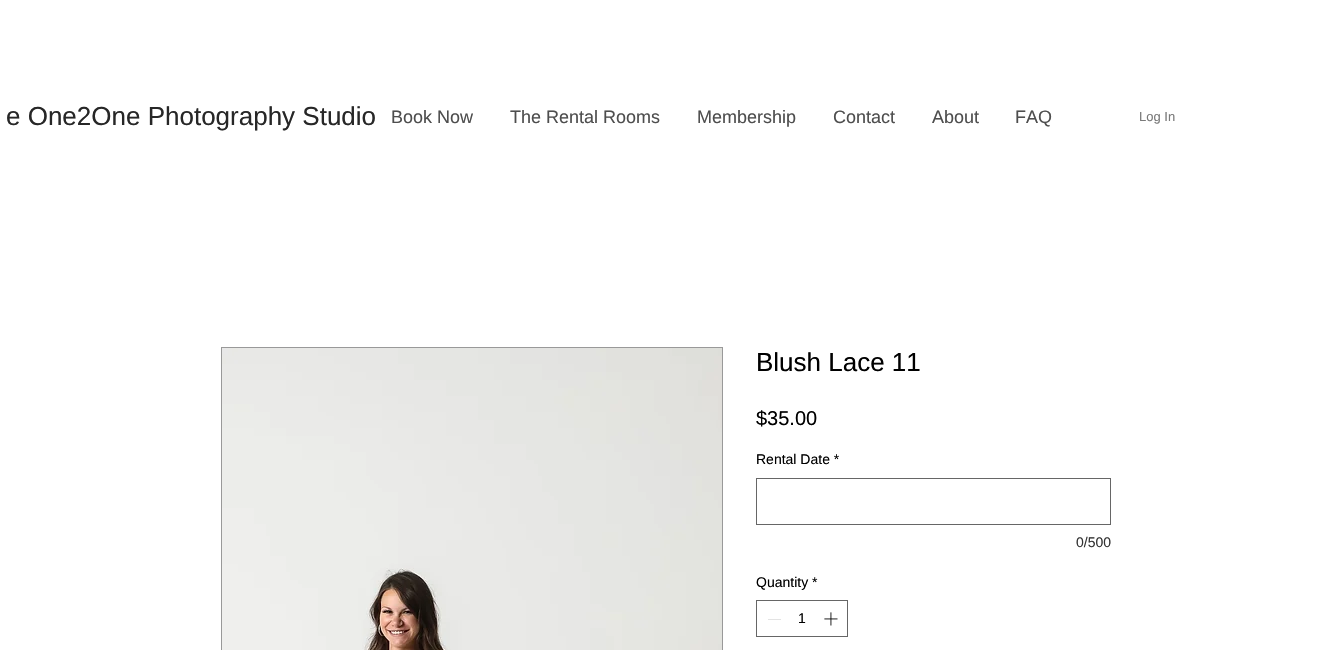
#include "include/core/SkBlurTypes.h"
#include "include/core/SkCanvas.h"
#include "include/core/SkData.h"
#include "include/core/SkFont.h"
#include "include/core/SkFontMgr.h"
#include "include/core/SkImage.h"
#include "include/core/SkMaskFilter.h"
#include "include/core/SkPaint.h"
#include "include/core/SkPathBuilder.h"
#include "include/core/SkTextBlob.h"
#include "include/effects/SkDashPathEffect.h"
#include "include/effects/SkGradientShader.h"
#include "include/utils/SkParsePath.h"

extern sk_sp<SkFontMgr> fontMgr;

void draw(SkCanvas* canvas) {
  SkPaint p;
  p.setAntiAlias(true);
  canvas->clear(SK_ColorWHITE);
  p.setStyle(SkPaint::kStroke_Style);
  p.setStrokeWidth(1);
  p.setColor(SkColorSetRGB(153, 153, 153));
  canvas->drawRect(SkRect::MakeLTRB(221.5f, 347.5f, 722.5f, 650.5f), p);
  canvas->drawImageRect(SkImages::DeferredFromEncodedData(SkData::MakeFromFileName("images/1.png")), SkRect::MakeLTRB(222, 348, 722, 650), SkSamplingOptions());
  p.setColor(SkColorSetRGB(102, 102, 102));
  canvas->drawRect(SkRect::MakeLTRB(756.5f, 478.5f, 1110.5f, 524.5f), p);
  canvas->drawRect(SkRect::MakeLTRB(756.5f, 600.5f, 847.5f, 636.5f), p);
  p.setStyle(SkPaint::kFill_Style);
  p.setColor(SkColorSetRGB(227, 227, 227));
  canvas->drawRect(SkRect::MakeLTRB(768, 619, 781, 620), p);
  canvas->drawImageRect(SkImages::DeferredFromEncodedData(SkData::MakeFromFileName("images/2.png")), SkRect::MakeLTRB(824, 612, 838, 626), SkSamplingOptions());
  SkFont font1(fontMgr->matchFamilyStyle("Liberation Sans", SkFontStyle::Normal()), 26);
  font1.setSubpixel(true);
  p.setColor(SkColorSetRGB(39, 39, 39));
  canvas->drawString("e One2One Photography Studio", 6, 125, font1, p);
  SkFont font2(fontMgr->matchFamilyStyle("Liberation Sans", SkFontStyle::Normal()), 18);
  font2.setSubpixel(true);
  p.setColor(SkColorSetRGB(78, 78, 78));
  canvas->drawString("Book Now", 391, 123, font2, p);
  canvas->drawString("The Rental Rooms", 510, 123, font2, p);
  canvas->drawString("Membership", 697, 123, font2, p);
  canvas->drawString("Contact", 833, 123, font2, p);
  canvas->drawString("About", 932, 123, font2, p);
  canvas->drawString("FAQ", 1015, 123, font2, p);
  SkFont font3(fontMgr->matchFamilyStyle("Liberation Sans", SkFontStyle::Normal()), 13);
  font3.setSubpixel(true);
  p.setColor(SkColorSetRGB(122, 122, 122));
  canvas->drawString("Log In", 1139, 121, font3, p);
  p.setColor(SK_ColorBLACK);
  canvas->drawString("Blush Lace 11", 756, 371, font1, p);
  SkFont font4(fontMgr->matchFamilyStyle("Liberation Sans", SkFontStyle::Normal()), 20);
  font4.setSubpixel(true);
  canvas->drawString("$35.00", 756, 425, font4, p);
  SkFont font5(fontMgr->matchFamilyStyle("Liberation Sans", SkFontStyle::Normal()), 14);
  font5.setSubpixel(true);
  canvas->drawString("Rental Date *", 756, 464, font5, p);
  p.setColor(SkColorSetRGB(51, 51, 51));
  canvas->drawString("0/500", 1076, 547, font5, p);
  p.setColor(SK_ColorBLACK);
  canvas->drawString("Quantity *", 756, 587, font5, p);
  canvas->drawString("1", 798, 623, font5, p);
}
